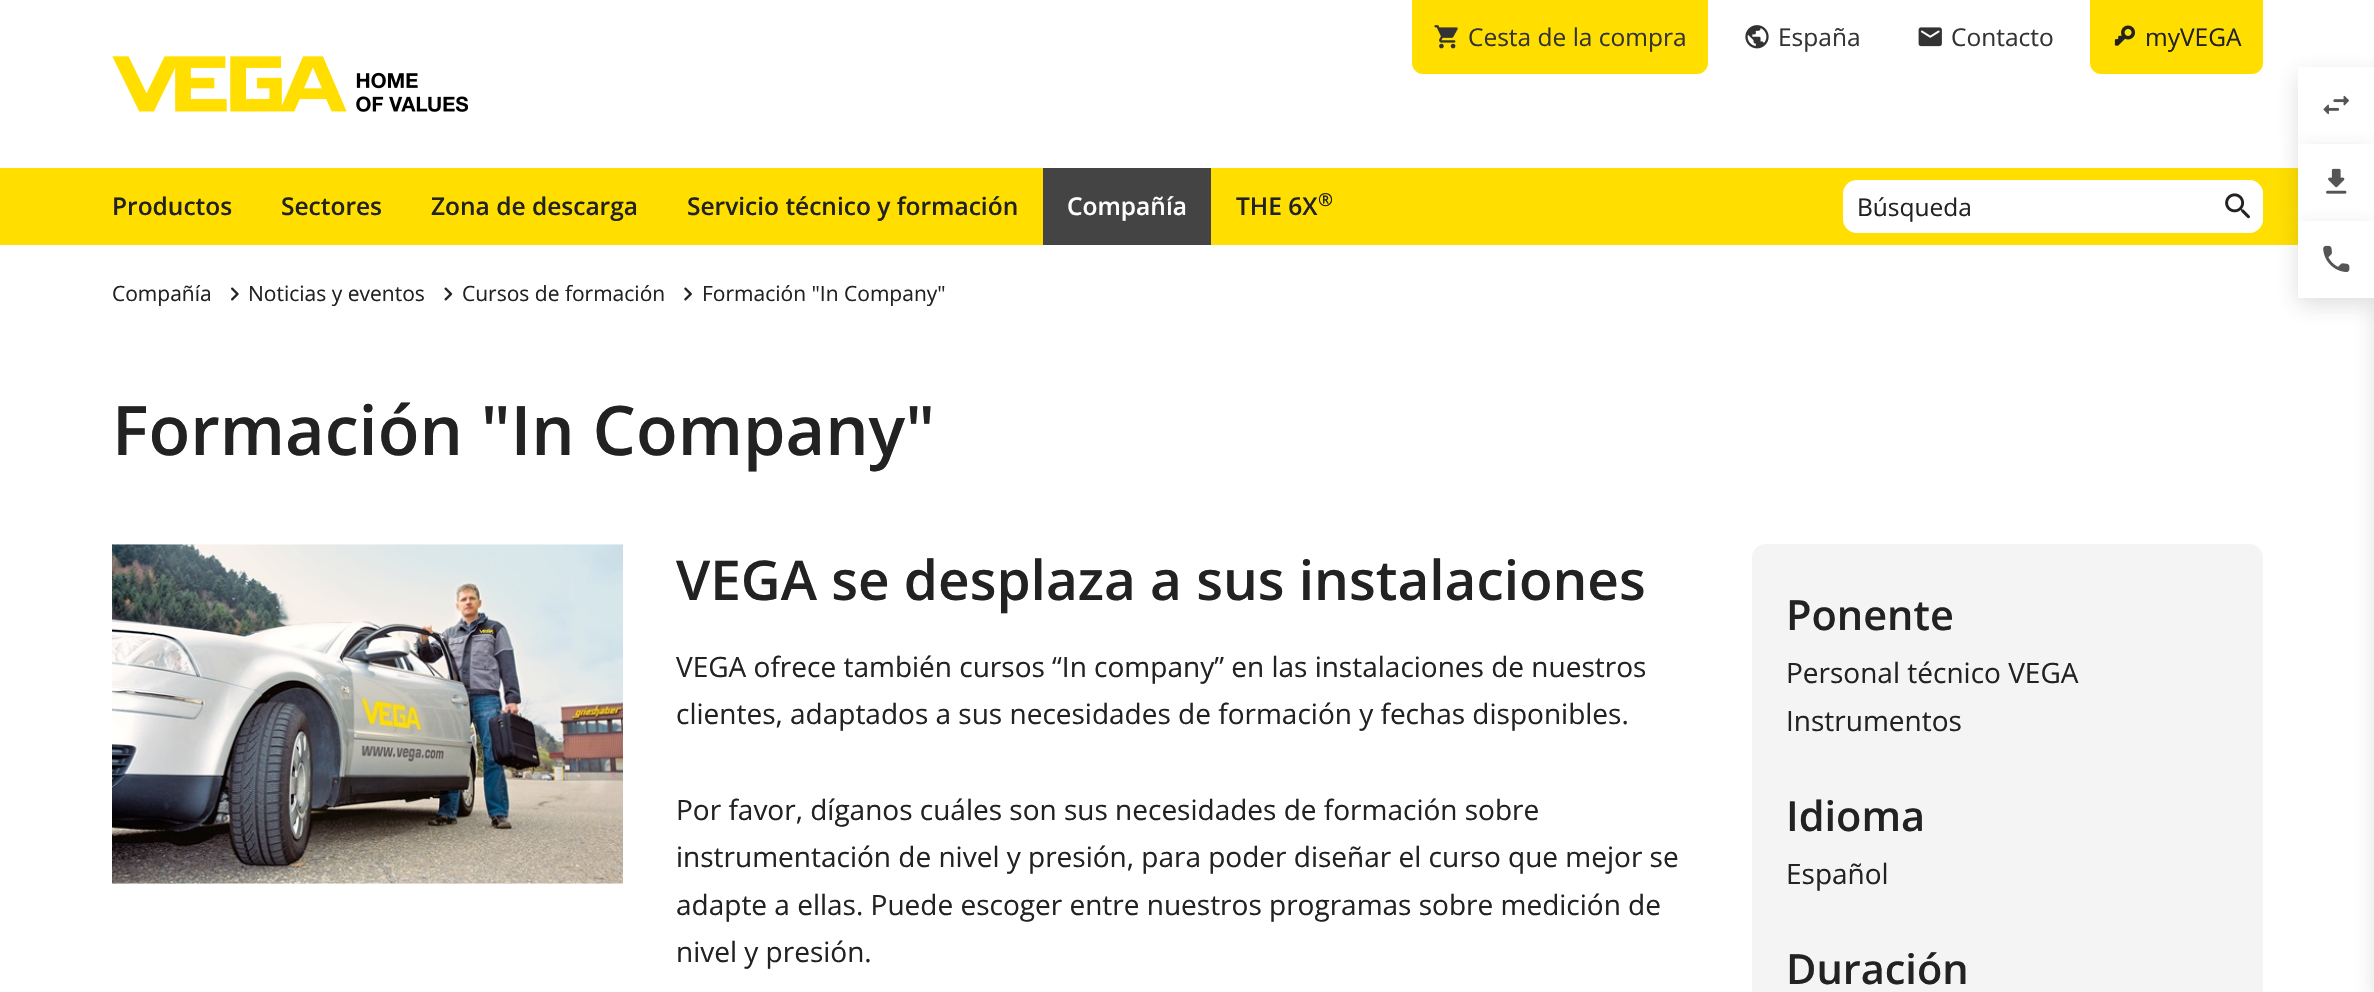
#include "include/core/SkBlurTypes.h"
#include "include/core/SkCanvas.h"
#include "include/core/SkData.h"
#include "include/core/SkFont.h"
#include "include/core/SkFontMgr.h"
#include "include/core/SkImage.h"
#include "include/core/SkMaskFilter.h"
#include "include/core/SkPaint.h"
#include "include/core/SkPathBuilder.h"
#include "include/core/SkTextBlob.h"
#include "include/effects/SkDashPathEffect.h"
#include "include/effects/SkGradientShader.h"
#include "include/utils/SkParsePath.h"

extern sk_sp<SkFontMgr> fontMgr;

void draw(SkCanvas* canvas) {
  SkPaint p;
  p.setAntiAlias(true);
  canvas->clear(SK_ColorWHITE);
  p.setColor(SkColorSetRGB(255, 222, 0));
  canvas->drawPath(SkPathBuilder().moveTo(1412, 0).lineTo(1708, 0).lineTo(1708, 63).cubicTo(1708, 69, 1703, 74, 1697, 74).lineTo(1423, 74).cubicTo(1417, 74, 1412, 69, 1412, 63).close().detach(), p);
  canvas->drawImageRect(SkImages::DeferredFromEncodedData(SkData::MakeFromFileName("images/1.png")), SkRect::MakeLTRB(1434, 25, 1458, 49), SkSamplingOptions());
  canvas->drawImageRect(SkImages::DeferredFromEncodedData(SkData::MakeFromFileName("images/2.png")), SkRect::MakeLTRB(1745, 25, 1769, 49), SkSamplingOptions());
  canvas->drawImageRect(SkImages::DeferredFromEncodedData(SkData::MakeFromFileName("images/3.png")), SkRect::MakeLTRB(1918, 27, 1942, 47), SkSamplingOptions());
  canvas->drawPath(SkPathBuilder().moveTo(2090, 0).lineTo(2263, 0).lineTo(2263, 63).cubicTo(2263, 69, 2258, 74, 2252, 74).lineTo(2101, 74).cubicTo(2095, 74, 2090, 69, 2090, 63).close().detach(), p);
  canvas->drawImageRect(SkImages::DeferredFromEncodedData(SkData::MakeFromFileName("images/4.png")), SkRect::MakeLTRB(2114, 25, 2136, 46), SkSamplingOptions());
  canvas->drawImageRect(SkImages::DeferredFromEncodedData(SkData::MakeFromFileName("images/5.png")), SkRect::MakeLTRB(112, 56, 468, 112), SkSamplingOptions());
  canvas->drawRect(SkRect::MakeLTRB(0, 168, 2298, 245), p);
  p.setColor(SkColorSetRGB(68, 68, 68));
  canvas->drawRect(SkRect::MakeLTRB(1043, 168, 1211, 245), p);
  p.setColor(SK_ColorWHITE);
  canvas->drawRoundRect(SkRect::MakeLTRB(1843, 180, 2263, 233), 14, 14, p);
  canvas->drawPath(SkPathBuilder().moveTo(2214, 180).lineTo(2249, 180).cubicTo(2256.5f, 180, 2263, 186.5f, 2263, 194).lineTo(2263, 219).cubicTo(2263, 226.5f, 2256.5f, 233, 2249, 233).lineTo(2214, 233).close().detach(), p);
  canvas->drawImageRect(SkImages::DeferredFromEncodedData(SkData::MakeFromFileName("images/6.png")), SkRect::MakeLTRB(2225, 193, 2250, 219), SkSamplingOptions());
  canvas->drawImageRect(SkImages::DeferredFromEncodedData(SkData::MakeFromFileName("images/7.png")), SkRect::MakeLTRB(231, 287, 239, 301), SkSamplingOptions());
  canvas->drawImageRect(SkImages::DeferredFromEncodedData(SkData::MakeFromFileName("images/8.png")), SkRect::MakeLTRB(444, 287, 453, 301), SkSamplingOptions());
  canvas->drawImageRect(SkImages::DeferredFromEncodedData(SkData::MakeFromFileName("images/9.png")), SkRect::MakeLTRB(684, 287, 692, 301), SkSamplingOptions());
  canvas->drawImageRect(SkImages::DeferredFromEncodedData(SkData::MakeFromFileName("images/10.png")), SkRect::MakeLTRB(112, 544, 623, 884), SkSamplingOptions());
  p.setColor(SkColorSetRGB(244, 244, 244));
  canvas->drawRoundRect(SkRect::MakeLTRB(1752, 544, 2263, 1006), 14, 14, p);
  p.setColor(SkColorSetARGB(41, 51, 51, 51));
  p.setMaskFilter(SkMaskFilter::MakeBlur(kNormal_SkBlurStyle, 10.5f));
  canvas->drawRect(SkRect::MakeLTRB(2298, 74, 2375, 151), p);
  p.setMaskFilter(nullptr);
  p.setMaskFilter(SkMaskFilter::MakeBlur(kNormal_SkBlurStyle, 10.5f));
  canvas->drawRect(SkRect::MakeLTRB(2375, 74, 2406, 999), p);
  p.setMaskFilter(nullptr);
  p.setColor(SK_ColorWHITE);
  canvas->drawRect(SkRect::MakeLTRB(2298, 67, 2374, 144), p);
  canvas->drawImageRect(SkImages::DeferredFromEncodedData(SkData::MakeFromFileName("images/11.png")), SkRect::MakeLTRB(2323, 95, 2349, 115), SkSamplingOptions());
  p.setColor(SkColorSetARGB(41, 51, 51, 51));
  p.setMaskFilter(SkMaskFilter::MakeBlur(kNormal_SkBlurStyle, 10.5f));
  canvas->drawRect(SkRect::MakeLTRB(2298, 151, 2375, 228), p);
  p.setMaskFilter(nullptr);
  p.setColor(SK_ColorWHITE);
  canvas->drawRect(SkRect::MakeLTRB(2298, 144, 2374, 221), p);
  canvas->drawImageRect(SkImages::DeferredFromEncodedData(SkData::MakeFromFileName("images/12.png")), SkRect::MakeLTRB(2326, 168, 2347, 194), SkSamplingOptions());
  p.setColor(SkColorSetARGB(41, 51, 51, 51));
  p.setMaskFilter(SkMaskFilter::MakeBlur(kNormal_SkBlurStyle, 10.5f));
  canvas->drawRect(SkRect::MakeLTRB(2298, 228, 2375, 305), p);
  p.setMaskFilter(nullptr);
  p.setColor(SK_ColorWHITE);
  canvas->drawRect(SkRect::MakeLTRB(2298, 221, 2374, 298), p);
  canvas->drawImageRect(SkImages::DeferredFromEncodedData(SkData::MakeFromFileName("images/13.png")), SkRect::MakeLTRB(2323, 245, 2350, 272), SkSamplingOptions());
  SkFont font1(fontMgr->matchFamilyStyle("Open Sans", SkFontStyle::Normal()), 24.5f);
  font1.setSubpixel(true);
  p.setColor(SkColorSetRGB(51, 51, 51));
  canvas->drawString("Cesta de la compra", 1468, 46, font1, p);
  canvas->drawString("España", 1778, 46, font1, p);
  canvas->drawString("Contacto", 1951, 46, font1, p);
  p.setColor(SkColorSetRGB(34, 34, 34));
  canvas->drawString("myVEGA", 2145, 46, font1, p);
  SkFont font2(fontMgr->matchFamilyStyle("Open Sans", SkFontStyle(600, SkFontStyle::kNormal_Width, SkFontStyle::kUpright_Slant)), 24.5f);
  font2.setSubpixel(true);
  canvas->drawString("Productos", 112, 215, font2, p);
  canvas->drawString("Sectores", 281, 215, font2, p);
  canvas->drawString("Zona de descarga", 431, 215, font2, p);
  canvas->drawString("Servicio técnico y formación", 687, 215, font2, p);
  p.setColor(SK_ColorWHITE);
  canvas->drawString("Compañía", 1067, 215, font2, p);
  p.setColor(SkColorSetRGB(34, 34, 34));
  canvas->drawString("THE 6X", 1236, 215, font2, p);
  SkFont font3(fontMgr->matchFamilyStyle("Open Sans", SkFontStyle(600, SkFontStyle::kNormal_Width, SkFontStyle::kUpright_Slant)), 18);
  font3.setSubpixel(true);
  canvas->drawString("®", 1318, 206, font3, p);
  canvas->drawString("Búsqueda", 1857, 216, font1, p);
  SkFont font4(fontMgr->matchFamilyStyle("Open Sans", SkFontStyle::Normal()), 21);
  font4.setSubpixel(true);
  canvas->drawString("Compañía", 112, 301, font4, p);
  canvas->drawString("Noticias y eventos", 248, 301, font4, p);
  canvas->drawString("Cursos de formación", 462, 301, font4, p);
  canvas->drawString("Formación \"In Company\"", 702, 301, font4, p);
  SkFont font5(fontMgr->matchFamilyStyle("Open Sans", SkFontStyle(600, SkFontStyle::kNormal_Width, SkFontStyle::kUpright_Slant)), 68.4f);
  font5.setSubpixel(true);
  canvas->drawString("Formación \"In Company\"", 112, 455, font5, p);
  SkFont font6(fontMgr->matchFamilyStyle("Open Sans", SkFontStyle(600, SkFontStyle::kNormal_Width, SkFontStyle::kUpright_Slant)), 54.9f);
  font6.setSubpixel(true);
  canvas->drawString("VEGA se desplaza a sus instalaciones", 676, 600, font6, p);
  SkFont font7(fontMgr->matchFamilyStyle("Open Sans", SkFontStyle::Normal()), 28);
  font7.setSubpixel(true);
  canvas->drawString("VEGA ofrece también cursos “In company” en las instalaciones de nuestros", 676, 677, font7, p);
  canvas->drawString("clientes, adaptados a sus necesidades de formación y fechas disponibles.", 676, 724, font7, p);
  canvas->drawString("Por favor, díganos cuáles son sus necesidades de formación sobre", 676, 820, font7, p);
  canvas->drawString("instrumentación de nivel y presión, para poder diseñar el curso que mejor se", 676, 867, font7, p);
  canvas->drawString("adapte a ellas. Puede escoger entre nuestros programas sobre medición de", 676, 915, font7, p);
  canvas->drawString("nivel y presión.", 676, 962, font7, p);
  SkFont font8(fontMgr->matchFamilyStyle("Open Sans", SkFontStyle(600, SkFontStyle::kNormal_Width, SkFontStyle::kUpright_Slant)), 41.5f);
  font8.setSubpixel(true);
  canvas->drawString("Ponente", 1786, 630, font8, p);
  canvas->drawString("Personal técnico VEGA", 1786, 683, font7, p);
  canvas->drawString("Instrumentos", 1786, 731, font7, p);
  canvas->drawString("Idioma", 1786, 831, font8, p);
  canvas->drawString("Español", 1786, 884, font7, p);
  canvas->drawString("Duración", 1786, 984, font8, p);
}
